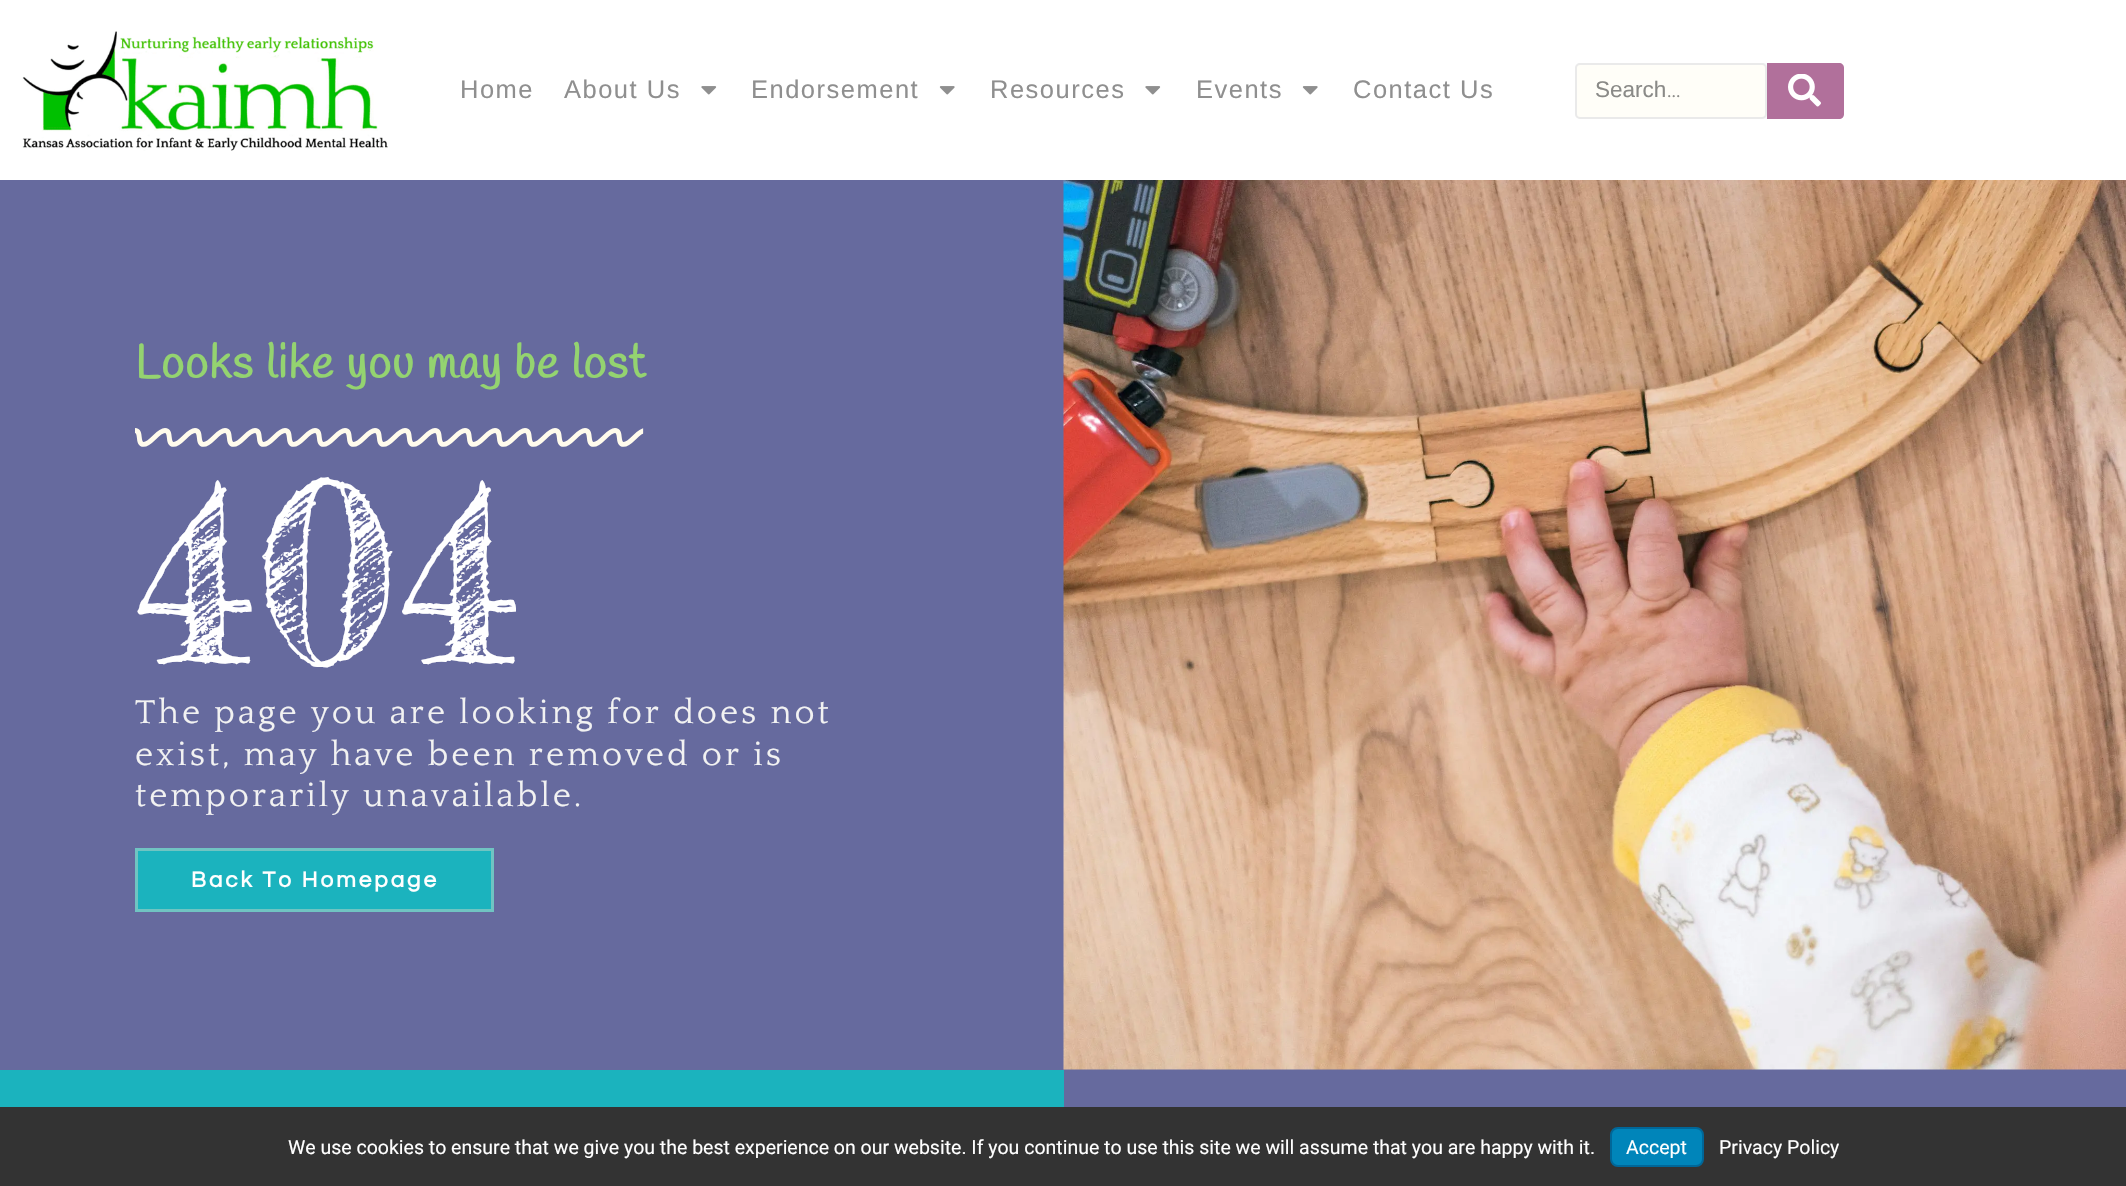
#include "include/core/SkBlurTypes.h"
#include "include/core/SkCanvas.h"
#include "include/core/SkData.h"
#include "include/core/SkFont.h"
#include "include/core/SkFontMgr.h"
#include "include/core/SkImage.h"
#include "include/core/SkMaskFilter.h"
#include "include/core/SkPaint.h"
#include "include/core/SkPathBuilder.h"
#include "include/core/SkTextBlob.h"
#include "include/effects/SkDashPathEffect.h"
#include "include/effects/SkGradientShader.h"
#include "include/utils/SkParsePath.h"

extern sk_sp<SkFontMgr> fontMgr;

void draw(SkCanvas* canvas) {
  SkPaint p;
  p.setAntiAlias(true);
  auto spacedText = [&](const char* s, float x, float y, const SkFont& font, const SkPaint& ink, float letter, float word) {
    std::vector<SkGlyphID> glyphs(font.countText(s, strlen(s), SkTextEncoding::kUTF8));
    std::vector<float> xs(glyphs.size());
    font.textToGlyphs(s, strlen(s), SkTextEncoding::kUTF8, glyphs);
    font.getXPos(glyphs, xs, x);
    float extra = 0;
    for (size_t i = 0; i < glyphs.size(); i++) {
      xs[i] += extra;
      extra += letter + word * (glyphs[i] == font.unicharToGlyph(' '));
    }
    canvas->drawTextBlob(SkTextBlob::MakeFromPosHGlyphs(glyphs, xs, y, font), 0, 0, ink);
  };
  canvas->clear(SK_ColorWHITE);
  canvas->drawImageRect(SkImages::DeferredFromEncodedData(SkData::MakeFromFileName("images/1.png")), SkRect::MakeLTRB(22, 31, 388, 151), SkSamplingOptions());
  canvas->drawImageRect(SkImages::DeferredFromEncodedData(SkData::MakeFromFileName("images/2.png")), SkRect::MakeLTRB(701, 86, 717, 95), SkSamplingOptions());
  canvas->drawImageRect(SkImages::DeferredFromEncodedData(SkData::MakeFromFileName("images/3.png")), SkRect::MakeLTRB(939, 86, 955, 95), SkSamplingOptions());
  canvas->drawImageRect(SkImages::DeferredFromEncodedData(SkData::MakeFromFileName("images/2.png")), SkRect::MakeLTRB(1145, 86, 1161, 95), SkSamplingOptions());
  canvas->drawImageRect(SkImages::DeferredFromEncodedData(SkData::MakeFromFileName("images/3.png")), SkRect::MakeLTRB(1302, 86, 1318, 95), SkSamplingOptions());
  p.setColor(SkColorSetRGB(247, 248, 250));
  canvas->drawRoundRect(SkRect::MakeLTRB(1575, 63, 1844, 119), 5, 5, p);
  p.setColor(SkColorSetRGB(255, 254, 248));
  canvas->drawRoundRect(SkRect::MakeLTRB(1576, 64, 1766, 118), 4, 4, p);
  p.setStyle(SkPaint::kStroke_Style);
  p.setStrokeWidth(2);
  p.setColor(SkColorSetRGB(234, 234, 234));
  canvas->drawRoundRect(SkRect::MakeLTRB(1576, 64, 1766, 118), 4, 4, p);
  p.setStyle(SkPaint::kFill_Style);
  p.setColor(SkColorSetRGB(177, 112, 155));
  canvas->drawPath(SkPathBuilder().moveTo(1767, 63).lineTo(1839, 63).cubicTo(1842, 63, 1844, 65, 1844, 68).lineTo(1844, 114).cubicTo(1844, 117, 1842, 119, 1839, 119).lineTo(1767, 119).close().detach(), p);
  canvas->drawImageRect(SkImages::DeferredFromEncodedData(SkData::MakeFromFileName("images/4.png")), SkRect::MakeLTRB(1788, 74, 1821, 107), SkSamplingOptions());
  p.setColor(SkColorSetRGB(102, 106, 158));
  canvas->drawRect(SkRect::MakeLTRB(0, 180, 2126, 1070), p);
  canvas->drawImageRect(SkImages::DeferredFromEncodedData(SkData::MakeFromFileName("images/5.png")), SkRect::MakeLTRB(135, 428, 644, 447), SkSamplingOptions());
  p.setColor(SkColorSetRGB(27, 179, 190));
  canvas->drawRect(SkRect::MakeLTRB(136.5f, 849.5f, 492.5f, 910.5f), p);
  p.setStyle(SkPaint::kStroke_Style);
  p.setStrokeWidth(3);
  p.setColor(SkColorSetRGB(112, 196, 194));
  canvas->drawRect(SkRect::MakeLTRB(136.5f, 849.5f, 492.5f, 910.5f), p);
  canvas->drawImageRect(SkImages::DeferredFromEncodedData(SkData::MakeFromFileName("images/6.png")), SkRect::MakeLTRB(1063, 180, 2126, 1070), SkSamplingOptions());
  p.setStyle(SkPaint::kFill_Style);
  p.setColor(SkColorSetRGB(102, 106, 158));
  canvas->drawRect(SkRect::MakeLTRB(1064, 1070, 2126, 1107), p);
  p.setColor(SkColorSetRGB(27, 179, 190));
  canvas->drawRect(SkRect::MakeLTRB(0, 1070, 1064, 1107), p);
  p.setColor(SkColorSetRGB(51, 51, 51));
  canvas->drawRect(SkRect::MakeLTRB(0, 1107, 2126, 1186), p);
  p.setColor(SkColorSetRGB(0, 133, 186));
  canvas->drawRoundRect(SkRect::MakeLTRB(1611, 1128, 1703, 1166), 7, 7, p);
  p.setStyle(SkPaint::kStroke_Style);
  p.setStrokeWidth(2);
  p.setColor(SkColorSetRGB(0, 103, 153));
  canvas->drawRoundRect(SkRect::MakeLTRB(1611, 1128, 1703, 1166), 7, 7, p);
  SkFont font1(fontMgr->matchFamilyStyle("Liberation Sans", SkFontStyle::Normal()), 25.5f);
  font1.setSubpixel(true);
  p.setStyle(SkPaint::kFill_Style);
  p.setColor(SkColorSetRGB(143, 143, 143));
  spacedText("Home", 460, 98, font1, p, 1.5f, 0);
  spacedText("About Us", 564, 98, font1, p, 1.5f, 0);
  spacedText("Endorsement", 751, 98, font1, p, 1.5f, 0);
  spacedText("Resources", 990, 98, font1, p, 1.5f, 0);
  spacedText("Events", 1196, 98, font1, p, 1.5f, 0);
  spacedText("Contact Us", 1353, 98, font1, p, 1.5f, 0);
  SkFont font2(fontMgr->matchFamilyStyle("Liberation Sans", SkFontStyle::Normal()), 22.5f);
  font2.setSubpixel(true);
  p.setColor(SkColorSetRGB(138, 138, 135));
  canvas->drawString("Search", 1595, 97, font2, p);
  SkFont font3(fontMgr->matchFamilyStyle("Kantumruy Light", SkFontStyle(300, SkFontStyle::kNormal_Width, SkFontStyle::kUpright_Slant)), 22.5f);
  font3.setSubpixel(true);
  canvas->drawString("...", 1667, 97, font3, p);
  SkFont font4(fontMgr->matchFamilyStyle("Handlee", SkFontStyle::Bold()), 46.5f);
  font4.setSubpixel(true);
  p.setColor(SkColorSetRGB(148, 211, 112));
  spacedText("Looks like you may be lost", 135, 378, font4, p, 1.2f, 0);
  SkFont font5(fontMgr->matchFamilyStyle("Fredericka the Great", SkFontStyle::Normal()), 248);
  font5.setSubpixel(true);
  p.setColor(SK_ColorWHITE);
  spacedText("404", 135, 663, font5, p, 2, 0);
  SkFont font6(fontMgr->matchFamilyStyle("Quattrocento", SkFontStyle::Normal()), 34.5f);
  font6.setSubpixel(true);
  p.setColor(SkColorSetRGB(242, 242, 242));
  spacedText("The page you are looking for does not", 135, 723, font6, p, 3, 0);
  spacedText("exist, may have been removed or is", 135, 765, font6, p, 3, 0);
  spacedText("temporarily unavailable.", 135, 806, font6, p, 3, 0);
  SkFont font7(fontMgr->matchFamilyStyle("Questrial", SkFontStyle::Bold()), 22.5f);
  font7.setSubpixel(true);
  p.setColor(SK_ColorWHITE);
  spacedText("Back To Homepage", 191, 887, font7, p, 3, 0);
  SkFont font8(fontMgr->matchFamilyStyle("Roboto", SkFontStyle::Normal()), 19.5f);
  font8.setSubpixel(true);
  canvas->drawString("We use cookies to ensure that we give you the best experience on our website. If you continue to use this site we will assume that you are happy with it.", 288, 1154, font8, p);
  canvas->drawString("Accept", 1626, 1154, font8, p);
  canvas->drawString("Privacy Policy", 1719, 1154, font8, p);
}
